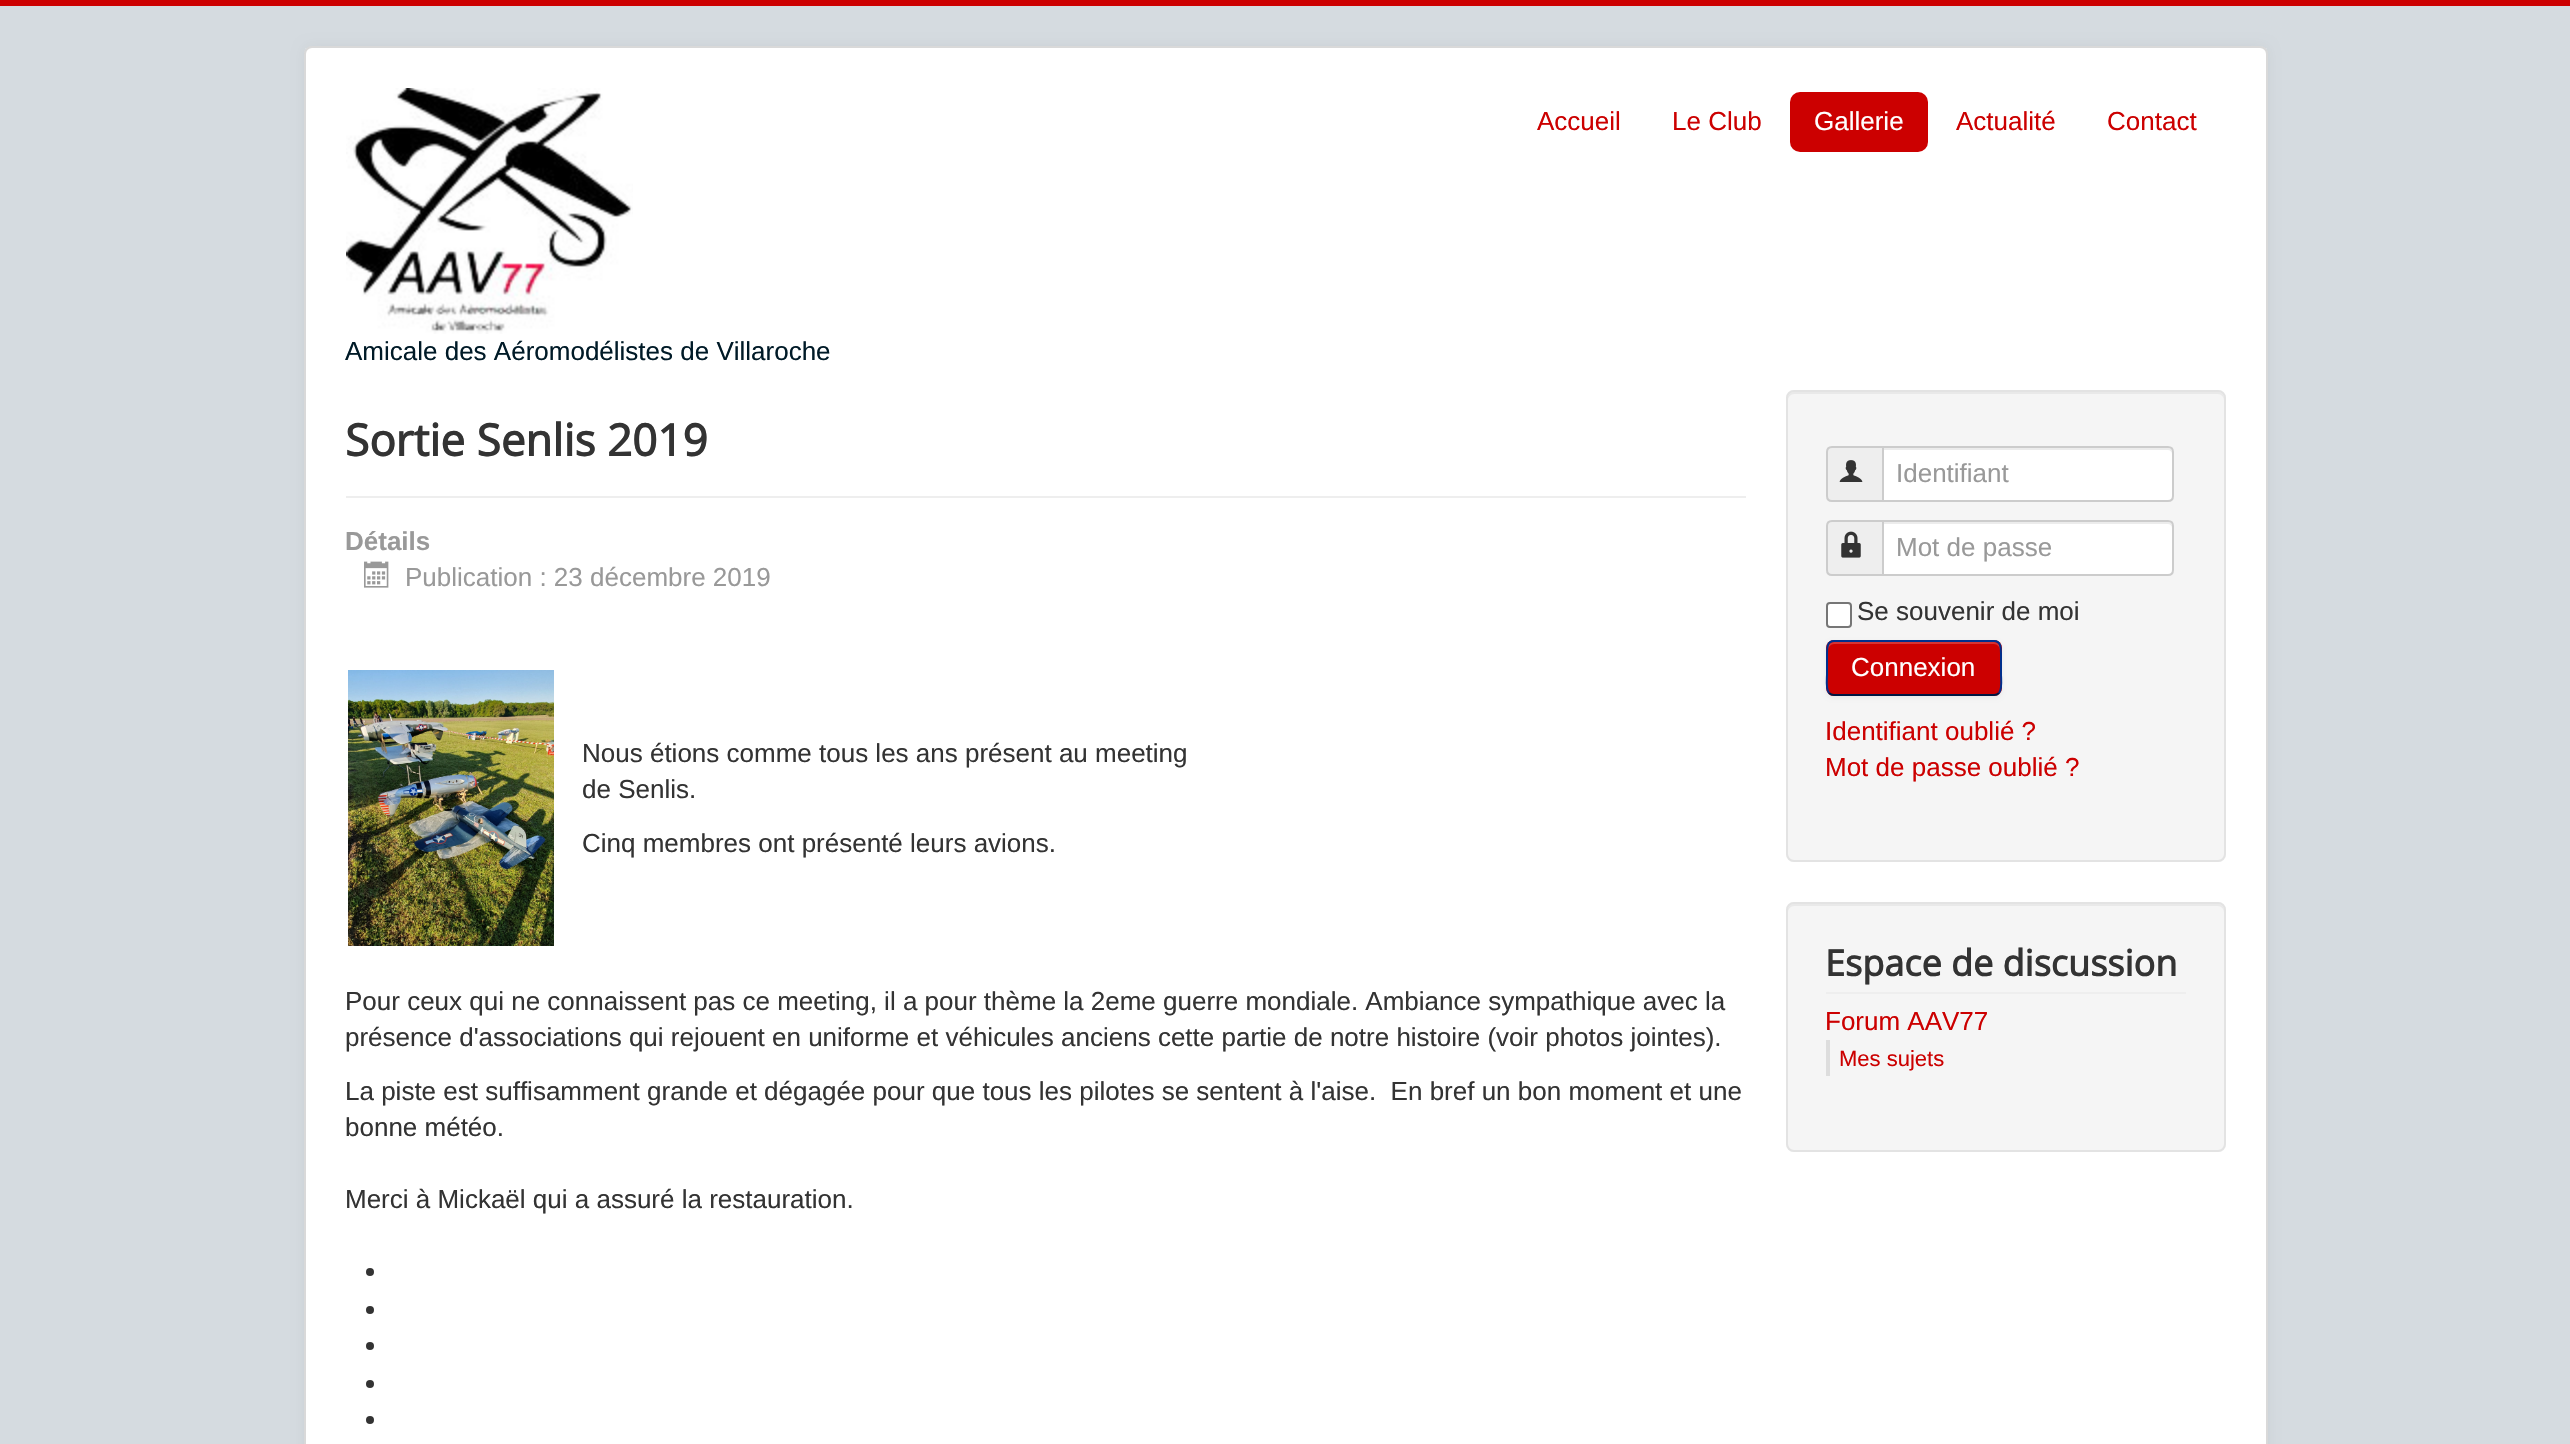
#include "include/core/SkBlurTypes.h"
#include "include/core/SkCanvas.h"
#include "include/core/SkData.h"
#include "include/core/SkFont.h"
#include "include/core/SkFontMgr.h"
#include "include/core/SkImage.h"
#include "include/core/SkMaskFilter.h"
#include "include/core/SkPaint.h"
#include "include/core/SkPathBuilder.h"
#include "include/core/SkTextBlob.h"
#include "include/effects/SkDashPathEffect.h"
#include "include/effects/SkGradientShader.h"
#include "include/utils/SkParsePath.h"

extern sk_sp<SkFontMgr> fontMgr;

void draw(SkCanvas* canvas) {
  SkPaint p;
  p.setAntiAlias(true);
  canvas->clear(SkColorSetRGB(213, 219, 224));
  p.setColor(SkColorSetRGB(204, 0, 0));
  canvas->drawRect(SkRect::MakeLTRB(0, 0, 2570, 6), p);
  p.setColor(SkColorSetARGB(13, 0, 0, 0));
  p.setMaskFilter(SkMaskFilter::MakeBlur(kNormal_SkBlurStyle, 6));
  canvas->drawRoundRect(SkRect::MakeLTRB(304, 46, 2268, 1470), 8, 8, p);
  p.setMaskFilter(nullptr);
  p.setColor(SK_ColorWHITE);
  canvas->drawRoundRect(SkRect::MakeLTRB(304, 46, 2268, 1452), 8, 8, p);
  p.setStyle(SkPaint::kStroke_Style);
  p.setStrokeWidth(2);
  p.setColor(SkColorSetARGB(38, 0, 0, 0));
  canvas->drawRoundRect(SkRect::MakeLTRB(305, 47, 2267, 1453), 7, 7, p);
  p.setStyle(SkPaint::kFill_Style);
  p.setColor(SkColorSetRGB(204, 0, 0));
  canvas->drawRoundRect(SkRect::MakeLTRB(1790, 92, 1928, 152), 10, 10, p);
  canvas->drawImageRect(SkImages::DeferredFromEncodedData(SkData::MakeFromFileName("images/1.png")), SkRect::MakeLTRB(346, 88, 633, 334), SkSamplingOptions());
  p.setColor(SkColorSetRGB(238, 238, 238));
  canvas->drawRect(SkRect::MakeLTRB(346, 496, 1746, 498), p);
  canvas->drawImageRect(SkImages::DeferredFromEncodedData(SkData::MakeFromFileName("images/2.png")), SkRect::MakeLTRB(364, 561, 389, 588), SkSamplingOptions());
  canvas->drawImageRect(SkImages::DeferredFromEncodedData(SkData::MakeFromFileName("images/3.png")), SkRect::MakeLTRB(348, 670, 554, 946), SkSamplingOptions());
  p.setColor(SkColorSetRGB(51, 51, 51));
  canvas->drawCircle(370, 1272, 4, p);
  canvas->drawCircle(370, 1310, 4, p);
  canvas->drawCircle(370, 1346, 4, p);
  canvas->drawCircle(370, 1384, 4, p);
  canvas->drawCircle(370, 1420, 4, p);
  p.setColor(SkColorSetRGB(245, 245, 245));
  canvas->drawRoundRect(SkRect::MakeLTRB(1786, 390, 2226, 862), 8, 8, p);
  p.setColor(SkColorSetRGB(233, 233, 233));
  canvas->drawPath(SkPathBuilder().moveTo(1794, 394).lineTo(2218, 394).cubicTo(2221, 394, 2224, 397, 2224, 400).lineTo(2224, 398).cubicTo(2224, 395, 2221, 392, 2218, 392).lineTo(1794, 392).cubicTo(1791, 392, 1788, 395, 1788, 398).lineTo(1788, 400).cubicTo(1788, 397, 1791, 394, 1794, 394).close().detach(), p);
  p.setStyle(SkPaint::kStroke_Style);
  p.setColor(SkColorSetRGB(227, 227, 227));
  canvas->drawRoundRect(SkRect::MakeLTRB(1787, 391, 2225, 861), 7, 7, p);
  p.setStyle(SkPaint::kFill_Style);
  p.setColor(SkColorSetRGB(238, 238, 238));
  canvas->drawPath(SkPathBuilder().moveTo(1832, 447).lineTo(1883, 447).lineTo(1883, 501).lineTo(1832, 501).cubicTo(1829, 501, 1827, 499, 1827, 496).lineTo(1827, 452).cubicTo(1827, 449, 1829, 447, 1832, 447).close().detach(), p);
  p.setStyle(SkPaint::kStroke_Style);
  p.setColor(SkColorSetRGB(204, 204, 204));
  canvas->drawPath(SkPathBuilder().moveTo(1832, 447).lineTo(1883, 447).lineTo(1883, 501).lineTo(1832, 501).cubicTo(1829, 501, 1827, 499, 1827, 496).lineTo(1827, 452).cubicTo(1827, 449, 1829, 447, 1832, 447).close().detach(), p);
  canvas->drawImageRect(SkImages::DeferredFromEncodedData(SkData::MakeFromFileName("images/4.png")), SkRect::MakeLTRB(1839, 460, 1863, 482), SkSamplingOptions());
  p.setStyle(SkPaint::kFill_Style);
  p.setColor(SK_ColorWHITE);
  canvas->drawPath(SkPathBuilder().moveTo(1882, 446).lineTo(2168, 446).cubicTo(2171.5f, 446, 2174, 448.5f, 2174, 452).lineTo(2174, 496).cubicTo(2174, 499.5f, 2171.5f, 502, 2168, 502).lineTo(1882, 502).close().detach(), p);
  p.setColor(SkColorSetRGB(236, 236, 236));
  canvas->drawPath(SkPathBuilder().moveTo(1884, 450).lineTo(2168, 450).cubicTo(2170, 450, 2172, 452, 2172, 454).cubicTo(2172, 451, 2172, 448, 2168, 448).lineTo(1884, 448).close().detach(), p);
  p.setStyle(SkPaint::kStroke_Style);
  p.setColor(SkColorSetRGB(204, 204, 204));
  canvas->drawPath(SkPathBuilder().moveTo(1883, 447).lineTo(2168, 447).cubicTo(2171, 447, 2173, 449, 2173, 452).lineTo(2173, 496).cubicTo(2173, 499, 2171, 501, 2168, 501).lineTo(1883, 501).close().detach(), p);
  p.setStyle(SkPaint::kFill_Style);
  p.setColor(SkColorSetRGB(238, 238, 238));
  canvas->drawPath(SkPathBuilder().moveTo(1832, 521).lineTo(1883, 521).lineTo(1883, 575).lineTo(1832, 575).cubicTo(1829, 575, 1827, 573, 1827, 570).lineTo(1827, 526).cubicTo(1827, 523, 1829, 521, 1832, 521).close().detach(), p);
  p.setStyle(SkPaint::kStroke_Style);
  p.setColor(SkColorSetRGB(204, 204, 204));
  canvas->drawPath(SkPathBuilder().moveTo(1832, 521).lineTo(1883, 521).lineTo(1883, 575).lineTo(1832, 575).cubicTo(1829, 575, 1827, 573, 1827, 570).lineTo(1827, 526).cubicTo(1827, 523, 1829, 521, 1832, 521).close().detach(), p);
  canvas->drawImageRect(SkImages::DeferredFromEncodedData(SkData::MakeFromFileName("images/5.png")), SkRect::MakeLTRB(1841, 531, 1861, 558), SkSamplingOptions());
  p.setStyle(SkPaint::kFill_Style);
  p.setColor(SK_ColorWHITE);
  canvas->drawPath(SkPathBuilder().moveTo(1882, 520).lineTo(2168, 520).cubicTo(2171.5f, 520, 2174, 522.5f, 2174, 526).lineTo(2174, 570).cubicTo(2174, 573.5f, 2171.5f, 576, 2168, 576).lineTo(1882, 576).close().detach(), p);
  p.setColor(SkColorSetRGB(236, 236, 236));
  canvas->drawPath(SkPathBuilder().moveTo(1884, 524).lineTo(2168, 524).cubicTo(2170, 524, 2172, 526, 2172, 528).cubicTo(2172, 525, 2172, 522, 2168, 522).lineTo(1884, 522).close().detach(), p);
  p.setStyle(SkPaint::kStroke_Style);
  p.setColor(SkColorSetRGB(204, 204, 204));
  canvas->drawPath(SkPathBuilder().moveTo(1883, 521).lineTo(2168, 521).cubicTo(2171, 521, 2173, 523, 2173, 526).lineTo(2173, 570).cubicTo(2173, 573, 2171, 575, 2168, 575).lineTo(1883, 575).close().detach(), p);
  p.setStyle(SkPaint::kFill_Style);
  p.setColor(SK_ColorWHITE);
  canvas->drawRoundRect(SkRect::MakeLTRB(1827, 603, 1851, 627), 3, 3, p);
  p.setStyle(SkPaint::kStroke_Style);
  p.setColor(SkColorSetRGB(118, 118, 118));
  canvas->drawRoundRect(SkRect::MakeLTRB(1827, 603, 1851, 627), 3, 3, p);
  p.setStyle(SkPaint::kFill_Style);
  p.setColor(SkColorSetARGB(13, 0, 0, 0));
  p.setMaskFilter(SkMaskFilter::MakeBlur(kNormal_SkBlurStyle, 2));
  canvas->drawRoundRect(SkRect::MakeLTRB(1826, 642, 2002, 698), 8, 8, p);
  p.setMaskFilter(nullptr);
  p.setColor(SkColorSetRGB(204, 0, 0));
  canvas->drawRoundRect(SkRect::MakeLTRB(1826, 640, 2002, 696), 8, 8, p);
  p.setColor(SkColorSetRGB(214, 51, 51));
  canvas->drawPath(SkPathBuilder().moveTo(1834, 644).lineTo(1994, 644).cubicTo(1997, 644, 2000, 647, 2000, 650).lineTo(2000, 648).cubicTo(2000, 645, 1997, 642, 1994, 642).lineTo(1834, 642).cubicTo(1831, 642, 1828, 645, 1828, 648).lineTo(1828, 650).cubicTo(1828, 647, 1831, 644, 1834, 644).close().detach(), p);
  p.setStyle(SkPaint::kStroke_Style);
  p.setColor(SkColorSetRGB(0, 22, 65));
  canvas->drawPath(SkPathBuilder().moveTo(1999, 693).cubicTo(1997.5f, 694.5f, 1996, 695, 1994, 695).lineTo(1834, 695).cubicTo(1832, 695, 1830.5f, 694.5f, 1829, 693).detach(), p);
  p.setColor(SkColorSetRGB(0, 47, 141));
  canvas->drawPath(SkPathBuilder().moveTo(1829, 693).cubicTo(1825.5f, 689, 1827, 679, 1827, 674.5f).lineTo(1827, 654.5f).cubicTo(1827, 649.5f, 1826.5f, 641, 1834, 641).lineTo(1994, 641).cubicTo(2001.5f, 641, 2001, 649.5f, 2001, 654.5f).lineTo(2001, 674.5f).cubicTo(2001, 679, 2002.5f, 689, 1999, 693).detach(), p);
  p.setStyle(SkPaint::kFill_Style);
  p.setColor(SkColorSetRGB(245, 245, 245));
  canvas->drawRoundRect(SkRect::MakeLTRB(1786, 902, 2226, 1152), 8, 8, p);
  p.setColor(SkColorSetRGB(233, 233, 233));
  canvas->drawPath(SkPathBuilder().moveTo(1794, 906).lineTo(2218, 906).cubicTo(2221, 906, 2224, 909, 2224, 912).lineTo(2224, 910).cubicTo(2224, 907, 2221, 904, 2218, 904).lineTo(1794, 904).cubicTo(1791, 904, 1788, 907, 1788, 910).lineTo(1788, 912).cubicTo(1788, 909, 1791, 906, 1794, 906).close().detach(), p);
  p.setStyle(SkPaint::kStroke_Style);
  p.setColor(SkColorSetRGB(227, 227, 227));
  canvas->drawRoundRect(SkRect::MakeLTRB(1787, 903, 2225, 1151), 7, 7, p);
  p.setStyle(SkPaint::kFill_Style);
  p.setColor(SkColorSetRGB(238, 238, 238));
  canvas->drawRect(SkRect::MakeLTRB(1826, 992, 2186, 994), p);
  p.setColor(SkColorSetRGB(221, 221, 221));
  canvas->drawRect(SkRect::MakeLTRB(1826, 1040, 1830, 1076), p);
  SkFont font1(fontMgr->matchFamilyStyle("Liberation Sans", SkFontStyle::Normal()), 26);
  font1.setSubpixel(true);
  p.setColor(SkColorSetRGB(204, 0, 0));
  canvas->drawString("Accueil", 1537, 130, font1, p);
  canvas->drawString("Le Club", 1672, 130, font1, p);
  p.setColor(SK_ColorWHITE);
  canvas->drawString("Gallerie", 1814, 130, font1, p);
  p.setColor(SkColorSetRGB(204, 0, 0));
  canvas->drawString("Actualité", 1956, 130, font1, p);
  canvas->drawString("Contact", 2107, 130, font1, p);
  p.setColor(SkColorSetRGB(0, 26, 39));
  canvas->drawString("Amicale des Aéromodélistes de Villaroche", 345, 360, font1, p);
  SkFont font2(fontMgr->matchFamilyStyle("Open Sans", SkFontStyle::Bold()), 44);
  font2.setSubpixel(true);
  p.setColor(SkColorSetRGB(51, 51, 51));
  canvas->drawString("Sortie Senlis 2019", 345, 456, font2, p);
  SkFont font3(fontMgr->matchFamilyStyle("Liberation Sans", SkFontStyle::Bold()), 26);
  font3.setSubpixel(true);
  p.setColor(SkColorSetRGB(153, 153, 153));
  canvas->drawString("Détails", 345, 550, font3, p);
  canvas->drawString("Publication : 23 décembre 2019", 405, 586, font1, p);
  p.setColor(SkColorSetRGB(51, 51, 51));
  canvas->drawString("Nous étions comme tous les ans présent au meeting", 582, 762, font1, p);
  canvas->drawString("de Senlis.", 582, 798, font1, p);
  canvas->drawString("Cinq membres ont présenté leurs avions.", 582, 852, font1, p);
  canvas->drawString("Pour ceux qui ne connaissent pas ce meeting, il a pour thème la 2eme guerre mondiale. Ambiance sympathique avec la", 345, 1010, font1, p);
  canvas->drawString("présence d'associations qui rejouent en uniforme et véhicules anciens cette partie de notre histoire (voir photos jointes).", 345, 1046, font1, p);
  canvas->drawString("La piste est suffisamment grande et dégagée pour que tous les pilotes se sentent à l'aise.  En bref un bon moment et une", 345, 1100, font1, p);
  canvas->drawString("bonne météo.", 345, 1136, font1, p);
  canvas->drawString("Merci à Mickaël qui a assuré la restauration.", 345, 1208, font1, p);
  p.setColor(SkColorSetRGB(153, 153, 153));
  canvas->drawString("Identifiant", 1896, 482, font1, p);
  canvas->drawString("Mot de passe", 1896, 556, font1, p);
  p.setColor(SkColorSetRGB(51, 51, 51));
  canvas->drawString("Se souvenir de moi", 1857, 620, font1, p);
  p.setColor(SK_ColorWHITE);
  canvas->drawString("Connexion", 1851, 676, font1, p);
  p.setColor(SkColorSetRGB(204, 0, 0));
  canvas->drawString("Identifiant oublié ?", 1825, 740, font1, p);
  canvas->drawString("Mot de passe oublié ?", 1825, 776, font1, p);
  SkFont font4(fontMgr->matchFamilyStyle("Open Sans", SkFontStyle::Bold()), 36);
  font4.setSubpixel(true);
  p.setColor(SkColorSetRGB(51, 51, 51));
  canvas->drawString("Espace de discussion", 1825, 976, font4, p);
  p.setColor(SkColorSetRGB(204, 0, 0));
  canvas->drawString("Forum AAV77", 1825, 1030, font1, p);
  SkFont font5(fontMgr->matchFamilyStyle("Liberation Sans", SkFontStyle::Normal()), 22);
  font5.setSubpixel(true);
  canvas->drawString("Mes sujets", 1839, 1066, font5, p);
}
